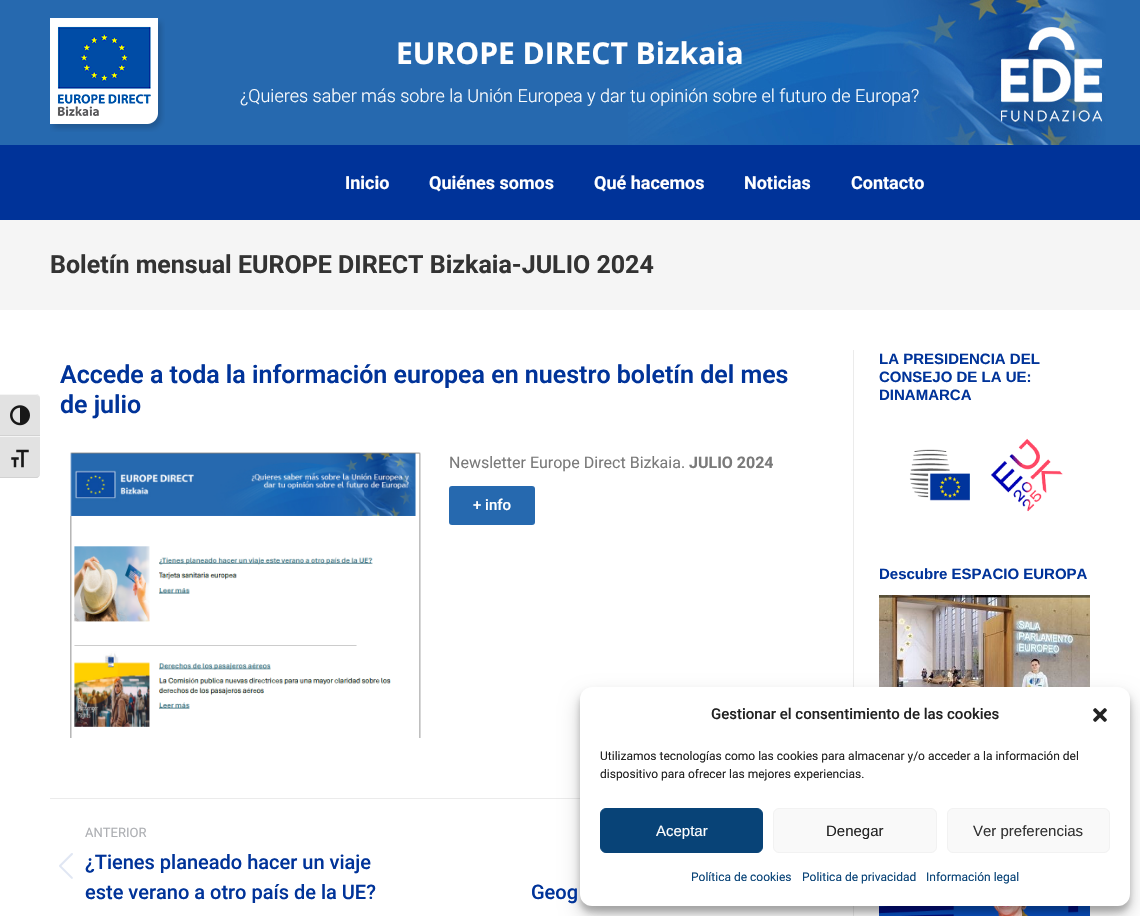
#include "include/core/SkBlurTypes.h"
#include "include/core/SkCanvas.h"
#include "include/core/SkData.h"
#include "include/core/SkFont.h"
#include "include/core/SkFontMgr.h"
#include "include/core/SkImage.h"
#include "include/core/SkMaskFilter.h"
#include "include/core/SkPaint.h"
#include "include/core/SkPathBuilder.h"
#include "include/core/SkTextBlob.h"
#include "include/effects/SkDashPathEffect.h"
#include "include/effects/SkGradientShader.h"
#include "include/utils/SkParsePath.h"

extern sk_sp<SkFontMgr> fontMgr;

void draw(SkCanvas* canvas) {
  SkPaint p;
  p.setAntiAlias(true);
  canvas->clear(SK_ColorWHITE);
  p.setColor(SkColorSetRGB(226, 226, 226));
  canvas->drawPath(SkPathBuilder().moveTo(0, 394).lineTo(36, 394).cubicTo(38, 394, 40, 396, 40, 398).lineTo(40, 436).lineTo(0, 436).close().detach(), p);
  p.setColor(SkColorSetRGB(245, 245, 245));
  canvas->drawPath(SkPathBuilder().moveTo(0, 394).lineTo(0, 395).lineTo(36, 395).cubicTo(38, 395, 40, 396, 40, 398).cubicTo(40, 396, 38, 394, 36, 394).close().detach(), p);
  p.setColor(SkColorSetRGB(210, 210, 210));
  canvas->drawRect(SkRect::MakeLTRB(0, 435, 40, 436), p);
  canvas->drawImageRect(SkImages::DeferredFromEncodedData(SkData::MakeFromFileName("images/1.png")), SkRect::MakeLTRB(10, 405, 30, 426), SkSamplingOptions());
  p.setColor(SkColorSetRGB(226, 226, 226));
  canvas->drawPath(SkPathBuilder().moveTo(0, 436).lineTo(40, 436).lineTo(40, 474).cubicTo(40, 476, 38, 478, 36, 478).lineTo(0, 478).close().detach(), p);
  p.setColor(SkColorSetRGB(245, 245, 245));
  canvas->drawRect(SkRect::MakeLTRB(0, 436, 40, 437), p);
  p.setColor(SkColorSetRGB(210, 210, 210));
  canvas->drawPath(SkPathBuilder().moveTo(0, 477).lineTo(0, 478).lineTo(36, 478).cubicTo(38, 478, 40, 476, 40, 474).cubicTo(40, 476, 38, 477, 36, 477).close().detach(), p);
  canvas->drawImageRect(SkImages::DeferredFromEncodedData(SkData::MakeFromFileName("images/2.png")), SkRect::MakeLTRB(11, 449, 29, 468), SkSamplingOptions());
  p.setColor(SkColorSetRGB(0, 51, 153));
  canvas->drawRect(SkRect::MakeLTRB(0, 145, 1140, 220), p);
  p.setColor(SkColorSetRGB(38, 105, 175));
  canvas->drawRect(SkRect::MakeLTRB(0, 0, 1140, 145), p);
  canvas->drawImageRect(SkImages::DeferredFromEncodedData(SkData::MakeFromFileName("images/3.png")), SkRect::MakeLTRB(628, 0, 1106, 145), SkSamplingOptions());
  canvas->drawImageRect(SkImages::DeferredFromEncodedData(SkData::MakeFromFileName("images/4.png")), SkRect::MakeLTRB(50, 18, 165, 132), SkSamplingOptions());
  p.setColor(SkColorSetRGB(245, 245, 245));
  canvas->drawRect(SkRect::MakeLTRB(0, 220, 1140, 310), p);
  canvas->drawImageRect(SkImages::DeferredFromEncodedData(SkData::MakeFromFileName("images/5.png")), SkRect::MakeLTRB(70, 452, 421, 738), SkSamplingOptions());
  p.setColor(SkColorSetRGB(38, 105, 175));
  canvas->drawRoundRect(SkRect::MakeLTRB(449, 486, 535, 525), 3, 3, p);
  p.setColor(SkColorSetRGB(235, 235, 235));
  canvas->drawRect(SkRect::MakeLTRB(50, 798, 580, 799), p);
  canvas->drawImageRect(SkImages::DeferredFromEncodedData(SkData::MakeFromFileName("images/6.png")), SkRect::MakeLTRB(59, 853, 73, 879), SkSamplingOptions());
  canvas->drawRect(SkRect::MakeLTRB(853, 350, 854, 916), p);
  canvas->drawImageRect(SkImages::DeferredFromEncodedData(SkData::MakeFromFileName("images/7.png")), SkRect::MakeLTRB(909, 438, 1063, 512), SkSamplingOptions());
  canvas->drawImageRect(SkImages::DeferredFromEncodedData(SkData::MakeFromFileName("images/8.png")), SkRect::MakeLTRB(879, 595, 1090, 687), SkSamplingOptions());
  canvas->drawImageRect(SkImages::DeferredFromEncodedData(SkData::MakeFromFileName("images/9.png")), SkRect::MakeLTRB(879, 906, 1090, 916), SkSamplingOptions());
  p.setColor(SkColorSetARGB(59, 0, 0, 0));
  p.setMaskFilter(SkMaskFilter::MakeBlur(kNormal_SkBlurStyle, 3));
  canvas->drawRoundRect(SkRect::MakeLTRB(580, 693, 1130, 912), 12, 12, p);
  p.setMaskFilter(nullptr);
  p.setColor(SkColorSetARGB(48, 0, 0, 0));
  p.setMaskFilter(SkMaskFilter::MakeBlur(kNormal_SkBlurStyle, 10));
  canvas->drawRoundRect(SkRect::MakeLTRB(580, 697, 1130, 916), 12, 12, p);
  p.setMaskFilter(nullptr);
  p.setColor(SK_ColorWHITE);
  canvas->drawRoundRect(SkRect::MakeLTRB(580, 687, 1130, 906), 12, 12, p);
  canvas->drawImageRect(SkImages::DeferredFromEncodedData(SkData::MakeFromFileName("images/10.png")), SkRect::MakeLTRB(1093, 708, 1107, 722), SkSamplingOptions());
  p.setColor(SkColorSetRGB(8, 67, 119));
  canvas->drawRoundRect(SkRect::MakeLTRB(600.5f, 808.5f, 762.5f, 852.5f), 5.5f, 5.5f, p);
  p.setStyle(SkPaint::kStroke_Style);
  p.setStrokeWidth(1);
  canvas->drawRoundRect(SkRect::MakeLTRB(600.5f, 808.5f, 762.5f, 852.5f), 5.5f, 5.5f, p);
  p.setStyle(SkPaint::kFill_Style);
  p.setColor(SkColorSetRGB(249, 249, 249));
  canvas->drawRoundRect(SkRect::MakeLTRB(773.5f, 808.5f, 936.5f, 852.5f), 5.5f, 5.5f, p);
  p.setStyle(SkPaint::kStroke_Style);
  p.setColor(SkColorSetRGB(242, 242, 242));
  canvas->drawRoundRect(SkRect::MakeLTRB(773.5f, 808.5f, 936.5f, 852.5f), 5.5f, 5.5f, p);
  p.setStyle(SkPaint::kFill_Style);
  p.setColor(SkColorSetRGB(249, 249, 249));
  canvas->drawRoundRect(SkRect::MakeLTRB(947.5f, 808.5f, 1109.5f, 852.5f), 5.5f, 5.5f, p);
  p.setStyle(SkPaint::kStroke_Style);
  p.setColor(SkColorSetRGB(242, 242, 242));
  canvas->drawRoundRect(SkRect::MakeLTRB(947.5f, 808.5f, 1109.5f, 852.5f), 5.5f, 5.5f, p);
  SkFont font1(fontMgr->matchFamilyStyle("Open Sans", SkFontStyle::Bold()), 30);
  font1.setSubpixel(true);
  p.setStyle(SkPaint::kFill_Style);
  p.setColor(SK_ColorWHITE);
  canvas->drawString("EUROPE DIRECT Bizkaia", 396, 64, font1, p);
  SkFont font2(fontMgr->matchFamilyStyle("Roboto", SkFontStyle(300, SkFontStyle::kNormal_Width, SkFontStyle::kUpright_Slant)), 18);
  font2.setSubpixel(true);
  canvas->drawString("¿Quieres saber más sobre la Unión Europea y dar tu opinión sobre el futuro de Europa?", 240, 102, font2, p);
  SkFont font3(fontMgr->matchFamilyStyle("Roboto", SkFontStyle::Bold()), 18);
  font3.setSubpixel(true);
  canvas->drawString("Inicio", 345, 189, font3, p);
  canvas->drawString("Quiénes somos", 429, 189, font3, p);
  canvas->drawString("Qué hacemos", 594, 189, font3, p);
  canvas->drawString("Noticias", 744, 189, font3, p);
  canvas->drawString("Contacto", 851, 189, font3, p);
  SkFont font4(fontMgr->matchFamilyStyle("Roboto", SkFontStyle::Bold()), 25);
  font4.setSubpixel(true);
  p.setColor(SkColorSetRGB(51, 51, 51));
  canvas->drawString("Boletín mensual EUROPE DIRECT Bizkaia-JULIO 2024", 50, 273, font4, p);
  SkFont font5(fontMgr->matchFamilyStyle("Roboto", SkFontStyle(600, SkFontStyle::kNormal_Width, SkFontStyle::kUpright_Slant)), 25);
  font5.setSubpixel(true);
  p.setColor(SkColorSetRGB(0, 51, 153));
  canvas->drawString("Accede a toda la información europea en nuestro boletín del mes", 60, 383, font5, p);
  canvas->drawString("de julio", 60, 413, font5, p);
  SkFont font6(fontMgr->matchFamilyStyle("Roboto", SkFontStyle::Normal()), 16);
  font6.setSubpixel(true);
  p.setColor(SkColorSetRGB(122, 122, 122));
  canvas->drawString("Newsletter Europe Direct Bizkaia.", 449, 468, font6, p);
  SkFont font7(fontMgr->matchFamilyStyle("Roboto", SkFontStyle::Bold()), 16);
  font7.setSubpixel(true);
  canvas->drawString("JULIO 2024", 689, 468, font7, p);
  SkFont font8(fontMgr->matchFamilyStyle("Roboto", SkFontStyle(500, SkFontStyle::kNormal_Width, SkFontStyle::kUpright_Slant)), 15);
  font8.setSubpixel(true);
  p.setColor(SK_ColorWHITE);
  canvas->drawString("+ info", 473, 510, font8, p);
  SkFont font9(fontMgr->matchFamilyStyle("Roboto", SkFontStyle::Normal()), 13);
  font9.setSubpixel(true);
  p.setColor(SkColorSetRGB(173, 175, 179));
  canvas->drawString("ANTERIOR", 85, 837, font9, p);
  SkFont font10(fontMgr->matchFamilyStyle("Roboto", SkFontStyle(500, SkFontStyle::kNormal_Width, SkFontStyle::kUpright_Slant)), 20);
  font10.setSubpixel(true);
  p.setColor(SkColorSetRGB(0, 51, 153));
  canvas->drawString("¿Tienes planeado hacer un viaje", 85, 869, font10, p);
  canvas->drawString("este verano a otro país de la UE?", 85, 899, font10, p);
  canvas->drawString("Geog", 531, 899, font10, p);
  SkFont font11(fontMgr->matchFamilyStyle("Liberation Sans", SkFontStyle::Bold()), 15);
  font11.setSubpixel(true);
  canvas->drawString("LA PRESIDENCIA DEL", 879, 364, font11, p);
  canvas->drawString("CONSEJO DE LA UE:", 879, 382, font11, p);
  canvas->drawString("DINAMARCA", 879, 400, font11, p);
  canvas->drawString("Descubre ESPACIO EUROPA", 879, 579, font11, p);
  p.setColor(SkColorSetRGB(34, 34, 34));
  canvas->drawString("Gestionar el consentimiento de las cookies", 711, 719, font8, p);
  SkFont font12(fontMgr->matchFamilyStyle("Roboto", SkFontStyle::Normal()), 12);
  font12.setSubpixel(true);
  canvas->drawString("Utilizamos tecnologías como las cookies para almacenar y/o acceder a la información del", 600, 760, font12, p);
  canvas->drawString("dispositivo para ofrecer las mejores experiencias.", 600, 778, font12, p);
  SkFont font13(fontMgr->matchFamilyStyle("Liberation Sans", SkFontStyle::Normal()), 15);
  font13.setSubpixel(true);
  p.setColor(SK_ColorWHITE);
  canvas->drawString("Aceptar", 656, 836, font13, p);
  p.setColor(SkColorSetRGB(34, 34, 34));
  canvas->drawString("Denegar", 826, 836, font13, p);
  p.setColor(SkColorSetRGB(51, 51, 51));
  canvas->drawString("Ver preferencias", 973, 836, font13, p);
  p.setColor(SkColorSetRGB(8, 67, 119));
  canvas->drawString("Política de cookies", 691, 881, font12, p);
  canvas->drawString("Politica de privacidad", 802, 881, font12, p);
  canvas->drawString("Información legal", 926, 881, font12, p);
}
